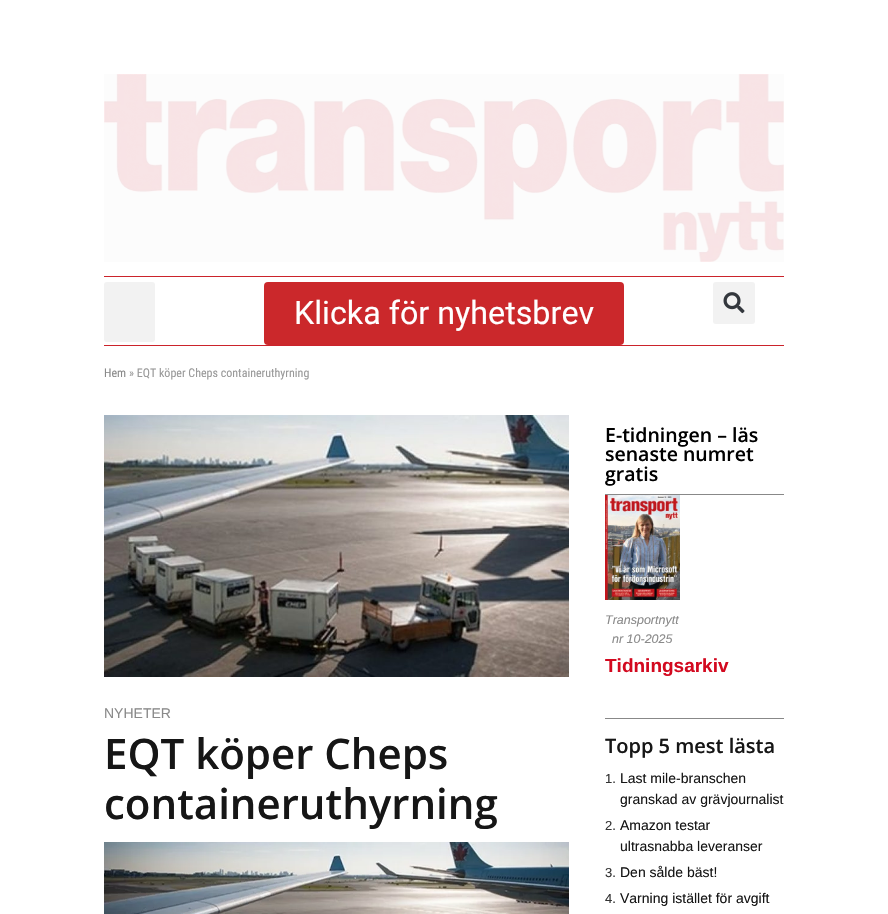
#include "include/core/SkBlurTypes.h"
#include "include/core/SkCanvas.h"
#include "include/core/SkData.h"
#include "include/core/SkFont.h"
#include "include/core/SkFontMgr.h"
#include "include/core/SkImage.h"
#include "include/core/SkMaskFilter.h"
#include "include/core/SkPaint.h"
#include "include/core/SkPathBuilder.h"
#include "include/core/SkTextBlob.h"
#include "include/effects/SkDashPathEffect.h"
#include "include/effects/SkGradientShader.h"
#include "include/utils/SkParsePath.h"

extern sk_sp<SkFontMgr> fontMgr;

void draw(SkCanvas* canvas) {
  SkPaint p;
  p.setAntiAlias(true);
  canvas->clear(SK_ColorWHITE);
  p.setColor(SkColorSetRGB(252, 252, 252));
  canvas->drawRect(SkRect::MakeLTRB(104, 74, 784, 262), p);
  canvas->drawImageRect(SkImages::DeferredFromEncodedData(SkData::MakeFromFileName("images/1.png")), SkRect::MakeLTRB(104, 74, 784, 262), SkSamplingOptions());
  p.setColor(SkColorSetRGB(203, 35, 43));
  canvas->drawRect(SkRect::MakeLTRB(104, 276, 784, 277), p);
  canvas->drawRect(SkRect::MakeLTRB(104, 345, 784, 346), p);
  p.setColor(SkColorSetRGB(242, 242, 242));
  canvas->drawRoundRect(SkRect::MakeLTRB(104, 282, 155, 342), 3, 3, p);
  p.setColor(SkColorSetRGB(203, 40, 43));
  canvas->drawRoundRect(SkRect::MakeLTRB(264, 282, 624, 345), 4, 4, p);
  p.setColor(SkColorSetRGB(242, 242, 242));
  canvas->drawRoundRect(SkRect::MakeLTRB(713, 282, 755, 324), 3, 3, p);
  canvas->drawImageRect(SkImages::DeferredFromEncodedData(SkData::MakeFromFileName("images/2.png")), SkRect::MakeLTRB(723, 292, 745, 314), SkSamplingOptions());
  canvas->drawImageRect(SkImages::DeferredFromEncodedData(SkData::MakeFromFileName("images/3.png")), SkRect::MakeLTRB(104, 415, 569, 677), SkSamplingOptions());
  canvas->drawImageRect(SkImages::DeferredFromEncodedData(SkData::MakeFromFileName("images/4.png")), SkRect::MakeLTRB(104, 842, 569, 914), SkSamplingOptions());
  p.setColor(SkColorSetRGB(136, 136, 136));
  canvas->drawRect(SkRect::MakeLTRB(605, 494, 784, 495), p);
  canvas->drawImageRect(SkImages::DeferredFromEncodedData(SkData::MakeFromFileName("images/5.png")), SkRect::MakeLTRB(605, 495, 680, 600), SkSamplingOptions());
  canvas->drawRect(SkRect::MakeLTRB(605, 718, 784, 719), p);
  SkFont font1(fontMgr->matchFamilyStyle("Roboto", SkFontStyle::Normal()), 32.25f);
  font1.setSubpixel(true);
  p.setColor(SK_ColorWHITE);
  canvas->drawString("Klicka för nyhetsbrev", 294, 324, font1, p);
  SkFont font2(fontMgr->matchFamilyStyle("Roboto Condensed", SkFontStyle::Normal()), 12);
  font2.setSubpixel(true);
  p.setColor(SkColorSetRGB(138, 138, 138));
  canvas->drawString("Hem", 104, 377, font2, p);
  p.setColor(SkColorSetRGB(153, 153, 153));
  canvas->drawString("» EQT köper Cheps containeruthyrning", 129, 377, font2, p);
  SkFont font3(fontMgr->matchFamilyStyle("Liberation Sans", SkFontStyle::Normal()), 14);
  font3.setSubpixel(true);
  p.setColor(SkColorSetRGB(138, 138, 138));
  canvas->drawString("NYHETER", 104, 718, font3, p);
  SkFont font4(fontMgr->matchFamilyStyle("Open Sans", SkFontStyle(600, SkFontStyle::kNormal_Width, SkFontStyle::kUpright_Slant)), 42);
  font4.setSubpixel(true);
  p.setColor(SkColorSetRGB(22, 22, 22));
  canvas->drawString("EQT köper Cheps", 104, 769, font4, p);
  canvas->drawString("containeruthyrning", 104, 819, font4, p);
  SkFont font5(fontMgr->matchFamilyStyle("Open Sans", SkFontStyle(600, SkFontStyle::kNormal_Width, SkFontStyle::kUpright_Slant)), 19.5f);
  font5.setSubpixel(true);
  p.setColor(SK_ColorBLACK);
  canvas->drawString("E-tidningen – läs", 605, 442, font5, p);
  canvas->drawString("senaste numret", 605, 461, font5, p);
  canvas->drawString("gratis", 605, 481, font5, p);
  SkFont font6(fontMgr->matchFamilyStyle("Liberation Sans", SkFontStyle::Italic()), 12.5f);
  font6.setSubpixel(true);
  p.setColor(SkColorSetRGB(138, 138, 138));
  canvas->drawString("Transportnytt", 605, 624, font6, p);
  canvas->drawString("nr 10-2025", 612, 643, font6, p);
  SkFont font7(fontMgr->matchFamilyStyle("Liberation Sans", SkFontStyle::Bold()), 19);
  font7.setSubpixel(true);
  p.setColor(SkColorSetRGB(211, 9, 31));
  canvas->drawString("Tidningsarkiv", 605, 672, font7, p);
  SkFont font8(fontMgr->matchFamilyStyle("Open Sans", SkFontStyle(600, SkFontStyle::kNormal_Width, SkFontStyle::kUpright_Slant)), 20);
  font8.setSubpixel(true);
  p.setColor(SkColorSetRGB(22, 22, 22));
  canvas->drawString("Topp 5 mest lästa", 605, 753, font8, p);
  SkFont font9(fontMgr->matchFamilyStyle("Liberation Sans", SkFontStyle::Normal()), 13);
  font9.setSubpixel(true);
  p.setColor(SkColorSetRGB(51, 51, 51));
  canvas->drawString("1.", 605, 783, font9, p);
  p.setColor(SkColorSetRGB(22, 22, 22));
  canvas->drawString("Last mile-branschen", 620, 783, font3, p);
  canvas->drawString("granskad av grävjournalist", 620, 804, font3, p);
  p.setColor(SkColorSetRGB(51, 51, 51));
  canvas->drawString("2.", 605, 830, font9, p);
  p.setColor(SkColorSetRGB(22, 22, 22));
  canvas->drawString("Amazon testar", 620, 830, font3, p);
  canvas->drawString("ultrasnabba leveranser", 620, 851, font3, p);
  p.setColor(SkColorSetRGB(51, 51, 51));
  canvas->drawString("3.", 605, 877, font9, p);
  p.setColor(SkColorSetRGB(22, 22, 22));
  canvas->drawString("Den sålde bäst!", 620, 877, font3, p);
  p.setColor(SkColorSetRGB(51, 51, 51));
  canvas->drawString("4.", 605, 903, font9, p);
  p.setColor(SkColorSetRGB(22, 22, 22));
  canvas->drawString("Varning istället för avgift", 620, 903, font3, p);
}
